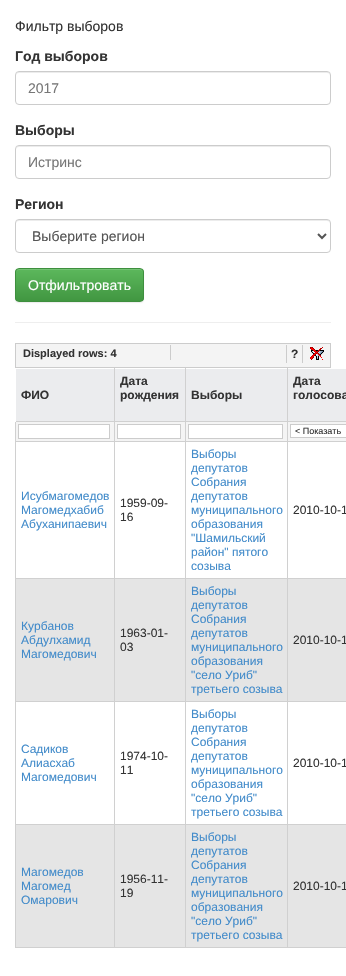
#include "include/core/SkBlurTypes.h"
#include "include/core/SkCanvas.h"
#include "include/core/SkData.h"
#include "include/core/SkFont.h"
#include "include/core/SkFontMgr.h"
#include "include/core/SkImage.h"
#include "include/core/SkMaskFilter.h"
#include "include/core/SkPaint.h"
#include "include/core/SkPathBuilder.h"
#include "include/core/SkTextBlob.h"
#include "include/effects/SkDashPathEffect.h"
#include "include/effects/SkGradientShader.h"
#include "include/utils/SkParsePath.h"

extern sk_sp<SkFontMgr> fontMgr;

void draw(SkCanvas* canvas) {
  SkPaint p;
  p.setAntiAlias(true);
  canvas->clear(SK_ColorWHITE);
  p.setColor(SkColorSetRGB(236, 236, 236));
  canvas->drawPath(SkPathBuilder().moveTo(19, 73).lineTo(327, 73).cubicTo(329, 73, 330, 74, 330, 76).lineTo(329, 73).lineTo(328, 72).lineTo(19, 72).cubicTo(17, 72, 16, 74, 16, 76).cubicTo(16, 74, 17, 73, 19, 73).close().detach(), p);
  p.setStyle(SkPaint::kStroke_Style);
  p.setStrokeWidth(1);
  p.setColor(SkColorSetRGB(204, 204, 204));
  canvas->drawRoundRect(SkRect::MakeLTRB(15.5f, 71.5f, 330.5f, 104.5f), 3.5f, 3.5f, p);
  p.setStyle(SkPaint::kFill_Style);
  p.setColor(SkColorSetRGB(236, 236, 236));
  canvas->drawPath(SkPathBuilder().moveTo(19, 147).lineTo(327, 147).cubicTo(329, 147, 330, 148, 330, 150).lineTo(329, 147).lineTo(328, 146).lineTo(19, 146).cubicTo(17, 146, 16, 148, 16, 150).cubicTo(16, 148, 17, 147, 19, 147).close().detach(), p);
  p.setStyle(SkPaint::kStroke_Style);
  p.setColor(SkColorSetRGB(204, 204, 204));
  canvas->drawRoundRect(SkRect::MakeLTRB(15.5f, 145.5f, 330.5f, 178.5f), 3.5f, 3.5f, p);
  p.setStyle(SkPaint::kFill_Style);
  p.setColor(SkColorSetRGB(236, 236, 236));
  canvas->drawPath(SkPathBuilder().moveTo(19, 221).lineTo(327, 221).cubicTo(329, 221, 330, 222, 330, 224).lineTo(329, 221).lineTo(328, 220).lineTo(19, 220).cubicTo(17, 220, 16, 222, 16, 224).cubicTo(16, 222, 17, 221, 19, 221).close().detach(), p);
  p.setStyle(SkPaint::kStroke_Style);
  p.setColor(SkColorSetRGB(204, 204, 204));
  canvas->drawRoundRect(SkRect::MakeLTRB(15.5f, 219.5f, 330.5f, 252.5f), 3.5f, 3.5f, p);
  p.setStrokeWidth(2);
  p.setColor(SkColorSetRGB(85, 85, 85));
  canvas->drawPath(SkPathBuilder().moveTo(318, 234).lineTo(322, 238).lineTo(326, 234).detach(), p);
  p.setStyle(SkPaint::kFill_Style);
  p.setColor(SkColorSetARGB(18, 0, 0, 0));
  p.setMaskFilter(SkMaskFilter::MakeBlur(kNormal_SkBlurStyle, 0.5f));
  canvas->drawRoundRect(SkRect::MakeLTRB(15, 269, 144, 303), 4, 4, p);
  p.setMaskFilter(nullptr);
  canvas->save();
  canvas->clipPath(SkPathBuilder().moveTo(19, 268).lineTo(140, 268).cubicTo(142, 268, 144, 270, 144, 272).lineTo(144, 298).cubicTo(144, 300, 142, 302, 140, 302).lineTo(19, 302).cubicTo(17, 302, 15, 300, 15, 298).lineTo(15, 272).cubicTo(15, 270, 17, 268, 19, 268).close().detach(), true);
  {
    const SkColor colors[] = {SkColorSetRGB(92, 184, 92), SkColorSetRGB(65, 150, 65)};
    const float stops[] = {0, 1};
    const SkPoint ends[] = {{80, 269}, {80, 301}};
    p.setShader(SkGradientShader::MakeLinear(ends, colors, stops, 2, SkTileMode::kClamp));
    p.setAlpha(255);
  }
  canvas->drawRect(SkRect::MakeLTRB(15, 269, 144, 301), p);
  canvas->restore();
  p.setShader(nullptr);
  p.setColor(SkColorSetRGB(116, 194, 116));
  canvas->drawPath(SkPathBuilder().moveTo(19, 270).lineTo(140, 270).cubicTo(142, 270, 143, 271, 143, 273).lineTo(143, 272).cubicTo(143, 270, 142, 269, 140, 269).lineTo(19, 269).cubicTo(17, 269, 16, 270, 16, 272).lineTo(16, 273).cubicTo(16, 271, 17, 270, 19, 270).close().detach(), p);
  p.setStyle(SkPaint::kStroke_Style);
  p.setStrokeWidth(1);
  p.setColor(SkColorSetRGB(62, 143, 62));
  canvas->drawRoundRect(SkRect::MakeLTRB(15.5f, 268.5f, 143.5f, 301.5f), 3.5f, 3.5f, p);
  p.setStyle(SkPaint::kFill_Style);
  p.setColor(SkColorSetRGB(238, 238, 238));
  canvas->drawRect(SkRect::MakeLTRB(15, 322, 331, 323), p);
  p.setColor(SkColorSetRGB(244, 244, 244));
  canvas->drawRect(SkRect::MakeLTRB(15.5f, 343.5f, 330.5f, 367.5f), p);
  p.setStyle(SkPaint::kStroke_Style);
  p.setColor(SkColorSetRGB(204, 204, 204));
  canvas->drawRect(SkRect::MakeLTRB(15.5f, 343.5f, 330.5f, 367.5f), p);
  p.setStyle(SkPaint::kFill_Style);
  canvas->drawRect(SkRect::MakeLTRB(170, 345, 171, 360), p);
  canvas->drawRect(SkRect::MakeLTRB(302, 345, 303, 363), p);
  canvas->drawRect(SkRect::MakeLTRB(286, 345, 287, 363), p);
  canvas->drawImageRect(SkImages::DeferredFromEncodedData(SkData::MakeFromFileName("images/1.png")), SkRect::MakeLTRB(310, 347, 324, 360), SkSamplingOptions());
  p.setColor(SkColorSetRGB(208, 208, 208));
  canvas->drawRect(SkRect::MakeLTRB(15, 422, 16, 948), p);
  p.setColor(SkColorSetRGB(235, 236, 238));
  canvas->drawRect(SkRect::MakeLTRB(16, 369, 114, 421), p);
  p.setColor(SkColorSetRGB(244, 244, 244));
  canvas->drawRect(SkRect::MakeLTRB(16, 422, 346, 441), p);
  p.setColor(SkColorSetRGB(229, 229, 229));
  canvas->drawRect(SkRect::MakeLTRB(16, 579, 346, 701), p);
  canvas->drawRect(SkRect::MakeLTRB(16, 825, 346, 947), p);
  p.setColor(SkColorSetRGB(208, 208, 208));
  canvas->drawRect(SkRect::MakeLTRB(287, 947, 346, 948), p);
  canvas->drawRect(SkRect::MakeLTRB(287, 824, 288, 948), p);
  canvas->drawRect(SkRect::MakeLTRB(287, 824, 346, 825), p);
  canvas->drawRect(SkRect::MakeLTRB(287, 701, 288, 825), p);
  canvas->drawRect(SkRect::MakeLTRB(287, 701, 346, 702), p);
  canvas->drawRect(SkRect::MakeLTRB(287, 578, 288, 702), p);
  canvas->drawRect(SkRect::MakeLTRB(287, 578, 346, 579), p);
  canvas->drawRect(SkRect::MakeLTRB(287, 441, 288, 579), p);
  canvas->drawRect(SkRect::MakeLTRB(287, 441, 346, 442), p);
  canvas->drawRect(SkRect::MakeLTRB(287, 421, 288, 442), p);
  canvas->drawRect(SkRect::MakeLTRB(287, 421, 346, 422), p);
  canvas->drawRect(SkRect::MakeLTRB(287, 368, 288, 422), p);
  canvas->drawRect(SkRect::MakeLTRB(185, 947, 288, 948), p);
  canvas->drawRect(SkRect::MakeLTRB(185, 824, 186, 948), p);
  canvas->drawRect(SkRect::MakeLTRB(185, 824, 288, 825), p);
  canvas->drawRect(SkRect::MakeLTRB(185, 701, 186, 825), p);
  canvas->drawRect(SkRect::MakeLTRB(185, 701, 288, 702), p);
  canvas->drawRect(SkRect::MakeLTRB(185, 578, 186, 702), p);
  canvas->drawRect(SkRect::MakeLTRB(185, 578, 288, 579), p);
  canvas->drawRect(SkRect::MakeLTRB(185, 441, 186, 579), p);
  canvas->drawRect(SkRect::MakeLTRB(185, 441, 288, 442), p);
  canvas->drawRect(SkRect::MakeLTRB(185, 421, 186, 442), p);
  canvas->drawRect(SkRect::MakeLTRB(185, 421, 288, 422), p);
  canvas->drawRect(SkRect::MakeLTRB(185, 368, 186, 422), p);
  canvas->drawRect(SkRect::MakeLTRB(114, 947, 186, 948), p);
  canvas->drawRect(SkRect::MakeLTRB(114, 824, 115, 948), p);
  canvas->drawRect(SkRect::MakeLTRB(114, 824, 186, 825), p);
  canvas->drawRect(SkRect::MakeLTRB(114, 701, 115, 825), p);
  canvas->drawRect(SkRect::MakeLTRB(114, 701, 186, 702), p);
  canvas->drawRect(SkRect::MakeLTRB(114, 578, 115, 702), p);
  canvas->drawRect(SkRect::MakeLTRB(114, 578, 186, 579), p);
  canvas->drawRect(SkRect::MakeLTRB(114, 441, 115, 579), p);
  canvas->drawRect(SkRect::MakeLTRB(114, 441, 186, 442), p);
  canvas->drawRect(SkRect::MakeLTRB(114, 421, 115, 442), p);
  canvas->drawRect(SkRect::MakeLTRB(114, 421, 186, 422), p);
  canvas->drawRect(SkRect::MakeLTRB(114, 368, 115, 422), p);
  canvas->drawRect(SkRect::MakeLTRB(15, 421, 115, 422), p);
  p.setColor(SK_ColorWHITE);
  canvas->drawRect(SkRect::MakeLTRB(15, 421, 16, 422), p);
  p.setColor(SkColorSetRGB(235, 236, 238));
  canvas->drawRect(SkRect::MakeLTRB(115, 369, 185, 421), p);
  canvas->drawRect(SkRect::MakeLTRB(186, 369, 287, 421), p);
  canvas->drawRect(SkRect::MakeLTRB(288, 369, 346, 421), p);
  p.setColor(SkColorSetRGB(208, 208, 208));
  canvas->drawRect(SkRect::MakeLTRB(15, 441, 115, 442), p);
  p.setColor(SK_ColorWHITE);
  canvas->drawRect(SkRect::MakeLTRB(18.5f, 424.5f, 109.5f, 438.5f), p);
  p.setStyle(SkPaint::kStroke_Style);
  p.setColor(SkColorSetRGB(204, 204, 204));
  canvas->drawRect(SkRect::MakeLTRB(18.5f, 424.5f, 109.5f, 438.5f), p);
  p.setStyle(SkPaint::kFill_Style);
  p.setColor(SK_ColorWHITE);
  canvas->drawRect(SkRect::MakeLTRB(117.5f, 424.5f, 180.5f, 438.5f), p);
  p.setStyle(SkPaint::kStroke_Style);
  p.setColor(SkColorSetRGB(204, 204, 204));
  canvas->drawRect(SkRect::MakeLTRB(117.5f, 424.5f, 180.5f, 438.5f), p);
  p.setStyle(SkPaint::kFill_Style);
  p.setColor(SK_ColorWHITE);
  canvas->drawRect(SkRect::MakeLTRB(188.5f, 424.5f, 282.5f, 438.5f), p);
  p.setStyle(SkPaint::kStroke_Style);
  p.setColor(SkColorSetRGB(204, 204, 204));
  canvas->drawRect(SkRect::MakeLTRB(188.5f, 424.5f, 282.5f, 438.5f), p);
  p.setStyle(SkPaint::kFill_Style);
  p.setColor(SK_ColorWHITE);
  canvas->drawRect(SkRect::MakeLTRB(290.5f, 424.5f, 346.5f, 437.5f), p);
  p.setStyle(SkPaint::kStroke_Style);
  p.setColor(SkColorSetRGB(204, 204, 204));
  canvas->drawRect(SkRect::MakeLTRB(290.5f, 424.5f, 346.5f, 437.5f), p);
  p.setStyle(SkPaint::kFill_Style);
  p.setColor(SkColorSetRGB(208, 208, 208));
  canvas->drawRect(SkRect::MakeLTRB(15, 578, 115, 579), p);
  canvas->drawRect(SkRect::MakeLTRB(15, 701, 115, 702), p);
  canvas->drawRect(SkRect::MakeLTRB(15, 824, 115, 825), p);
  canvas->drawRect(SkRect::MakeLTRB(15, 947, 115, 948), p);
  SkFont font1(fontMgr->matchFamilyStyle("Liberation Sans", SkFontStyle::Normal()), 14);
  font1.setSubpixel(true);
  p.setColor(SkColorSetRGB(51, 51, 51));
  canvas->drawString("Фильтр выборов", 15, 31, font1, p);
  SkFont font2(fontMgr->matchFamilyStyle("Liberation Sans", SkFontStyle::Bold()), 14);
  font2.setSubpixel(true);
  canvas->drawString("Год выборов", 15, 61, font2, p);
  p.setColor(SkColorSetRGB(119, 119, 119));
  canvas->drawString("2017", 28, 93, font1, p);
  p.setColor(SkColorSetRGB(51, 51, 51));
  canvas->drawString("Выборы", 15, 135, font2, p);
  p.setColor(SkColorSetRGB(119, 119, 119));
  canvas->drawString("Истринс", 28, 167, font1, p);
  p.setColor(SkColorSetRGB(51, 51, 51));
  canvas->drawString("Регион", 15, 209, font2, p);
  p.setColor(SkColorSetRGB(85, 85, 85));
  canvas->drawString("Выберите регион", 32, 241, font1, p);
  p.setColor(SK_ColorWHITE);
  canvas->drawString("Отфильтровать", 28, 290, font1, p);
  SkFont font3(fontMgr->matchFamilyStyle("Liberation Sans", SkFontStyle::Bold()), 11);
  font3.setSubpixel(true);
  p.setColor(SkColorSetRGB(51, 51, 51));
  canvas->drawString("Displayed rows: 4", 23, 357, font3, p);
  SkFont font4(fontMgr->matchFamilyStyle("Liberation Sans", SkFontStyle::Bold()), 12);
  font4.setSubpixel(true);
  canvas->drawString("?", 291, 358, font4, p);
  canvas->drawString("ФИО", 21, 399, font4, p);
  canvas->drawString("Дата", 120, 385, font4, p);
  canvas->drawString("рождения", 120, 399, font4, p);
  canvas->drawString("Выборы", 191, 399, font4, p);
  canvas->drawString("Дата", 293, 385, font4, p);
  canvas->drawString("голосова", 293, 399, font4, p);
  SkFont font5(fontMgr->matchFamilyStyle("Liberation Sans", SkFontStyle::Normal()), 9);
  font5.setSubpixel(true);
  canvas->drawString("< Показать", 295, 434, font5, p);
  SkFont font6(fontMgr->matchFamilyStyle("Liberation Sans", SkFontStyle::Normal()), 12);
  font6.setSubpixel(true);
  p.setColor(SkColorSetRGB(66, 139, 202));
  canvas->drawString("Исубмагомедов", 21, 500, font6, p);
  canvas->drawString("Магомедхабиб", 21, 514, font6, p);
  canvas->drawString("Абуханипаевич", 21, 528, font6, p);
  p.setColor(SkColorSetRGB(51, 51, 51));
  canvas->drawString("1959-09-", 120, 507, font6, p);
  canvas->drawString("16", 120, 521, font6, p);
  p.setColor(SkColorSetRGB(66, 139, 202));
  canvas->drawString("Выборы", 191, 458, font6, p);
  canvas->drawString("депутатов", 191, 472, font6, p);
  canvas->drawString("Собрания", 191, 486, font6, p);
  canvas->drawString("депутатов", 191, 500, font6, p);
  canvas->drawString("муниципального", 191, 514, font6, p);
  canvas->drawString("образования", 191, 528, font6, p);
  canvas->drawString("\"Шамильский", 191, 542, font6, p);
  canvas->drawString("район\" пятого", 191, 556, font6, p);
  canvas->drawString("созыва", 191, 570, font6, p);
  p.setColor(SkColorSetRGB(51, 51, 51));
  canvas->drawString("2010-10-1", 293, 514, font6, p);
  p.setColor(SkColorSetRGB(66, 139, 202));
  canvas->drawString("Курбанов", 21, 630, font6, p);
  canvas->drawString("Абдулхамид", 21, 644, font6, p);
  canvas->drawString("Магомедович", 21, 658, font6, p);
  p.setColor(SkColorSetRGB(51, 51, 51));
  canvas->drawString("1963-01-", 120, 637, font6, p);
  canvas->drawString("03", 120, 651, font6, p);
  p.setColor(SkColorSetRGB(66, 139, 202));
  canvas->drawString("Выборы", 191, 595, font6, p);
  canvas->drawString("депутатов", 191, 609, font6, p);
  canvas->drawString("Собрания", 191, 623, font6, p);
  canvas->drawString("депутатов", 191, 637, font6, p);
  canvas->drawString("муниципального", 191, 651, font6, p);
  canvas->drawString("образования", 191, 665, font6, p);
  canvas->drawString("\"село Уриб\"", 191, 679, font6, p);
  canvas->drawString("третьего созыва", 191, 693, font6, p);
  p.setColor(SkColorSetRGB(51, 51, 51));
  canvas->drawString("2010-10-1", 293, 644, font6, p);
  p.setColor(SkColorSetRGB(66, 139, 202));
  canvas->drawString("Садиков", 21, 753, font6, p);
  canvas->drawString("Алиасхаб", 21, 767, font6, p);
  canvas->drawString("Магомедович", 21, 781, font6, p);
  p.setColor(SkColorSetRGB(51, 51, 51));
  canvas->drawString("1974-10-", 120, 760, font6, p);
  canvas->drawString("11", 120, 774, font6, p);
  p.setColor(SkColorSetRGB(66, 139, 202));
  canvas->drawString("Выборы", 191, 718, font6, p);
  canvas->drawString("депутатов", 191, 732, font6, p);
  canvas->drawString("Собрания", 191, 746, font6, p);
  canvas->drawString("депутатов", 191, 760, font6, p);
  canvas->drawString("муниципального", 191, 774, font6, p);
  canvas->drawString("образования", 191, 788, font6, p);
  canvas->drawString("\"село Уриб\"", 191, 802, font6, p);
  canvas->drawString("третьего созыва", 191, 816, font6, p);
  p.setColor(SkColorSetRGB(51, 51, 51));
  canvas->drawString("2010-10-1", 293, 767, font6, p);
  p.setColor(SkColorSetRGB(66, 139, 202));
  canvas->drawString("Магомедов", 21, 876, font6, p);
  canvas->drawString("Магомед", 21, 890, font6, p);
  canvas->drawString("Омарович", 21, 904, font6, p);
  p.setColor(SkColorSetRGB(51, 51, 51));
  canvas->drawString("1956-11-", 120, 883, font6, p);
  canvas->drawString("19", 120, 897, font6, p);
  p.setColor(SkColorSetRGB(66, 139, 202));
  canvas->drawString("Выборы", 191, 841, font6, p);
  canvas->drawString("депутатов", 191, 855, font6, p);
  canvas->drawString("Собрания", 191, 869, font6, p);
  canvas->drawString("депутатов", 191, 883, font6, p);
  canvas->drawString("муниципального", 191, 897, font6, p);
  canvas->drawString("образования", 191, 911, font6, p);
  canvas->drawString("\"село Уриб\"", 191, 925, font6, p);
  canvas->drawString("третьего созыва", 191, 939, font6, p);
  p.setColor(SkColorSetRGB(51, 51, 51));
  canvas->drawString("2010-10-1", 293, 890, font6, p);
}
